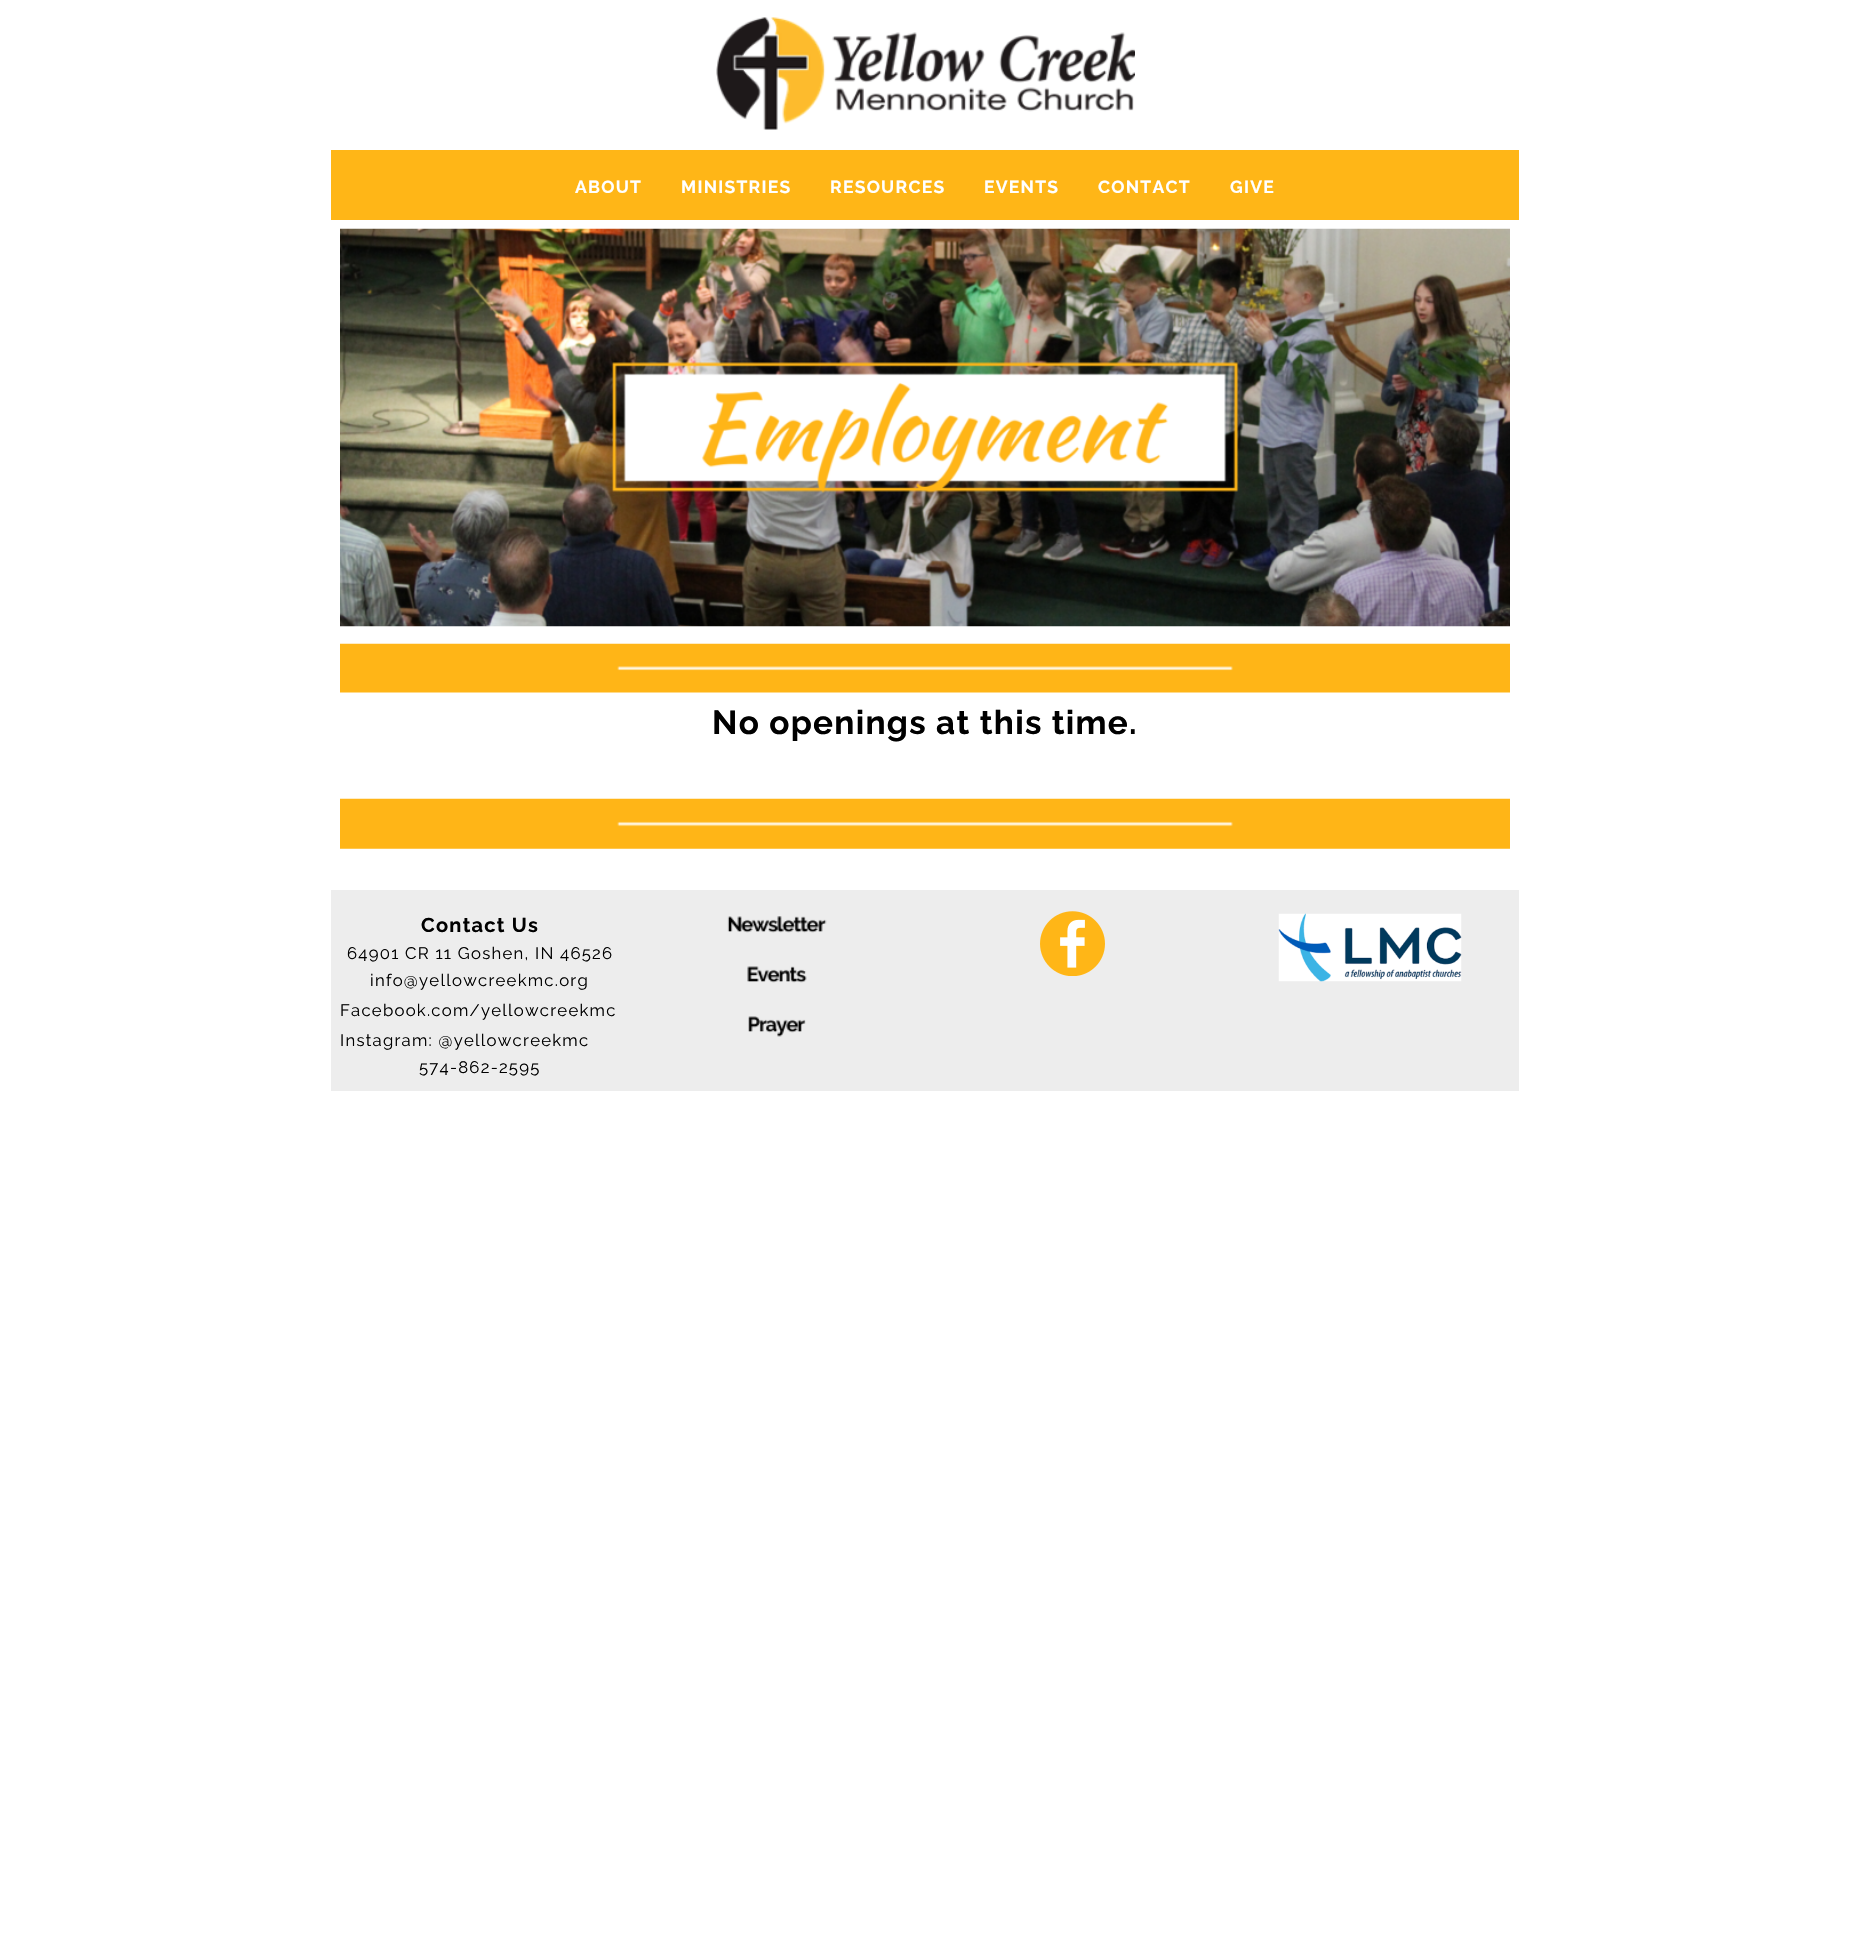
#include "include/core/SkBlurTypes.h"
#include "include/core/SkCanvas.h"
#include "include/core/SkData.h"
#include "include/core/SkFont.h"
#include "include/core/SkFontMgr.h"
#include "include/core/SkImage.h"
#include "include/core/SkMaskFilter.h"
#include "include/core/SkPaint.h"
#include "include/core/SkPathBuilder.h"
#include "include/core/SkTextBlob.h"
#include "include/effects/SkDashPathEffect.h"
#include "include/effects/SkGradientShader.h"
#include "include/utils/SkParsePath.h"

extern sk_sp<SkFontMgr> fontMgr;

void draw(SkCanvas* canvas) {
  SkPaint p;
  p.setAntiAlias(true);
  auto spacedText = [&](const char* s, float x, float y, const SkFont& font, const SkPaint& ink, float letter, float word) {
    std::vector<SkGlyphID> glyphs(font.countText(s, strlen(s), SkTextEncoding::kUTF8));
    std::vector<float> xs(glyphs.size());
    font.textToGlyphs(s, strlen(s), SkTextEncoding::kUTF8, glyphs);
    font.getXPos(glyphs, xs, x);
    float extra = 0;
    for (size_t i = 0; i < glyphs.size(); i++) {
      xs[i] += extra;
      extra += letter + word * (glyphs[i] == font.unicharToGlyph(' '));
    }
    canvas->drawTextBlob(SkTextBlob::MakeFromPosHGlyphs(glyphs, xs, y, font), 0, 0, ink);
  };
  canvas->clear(SK_ColorWHITE);
  canvas->drawImageRect(SkImages::DeferredFromEncodedData(SkData::MakeFromFileName("images/1.png")), SkRect::MakeLTRB(716, 17, 1135, 130), SkSamplingOptions());
  p.setColor(SkColorSetRGB(255, 182, 23));
  canvas->drawRect(SkRect::MakeLTRB(331, 150, 1519, 220), p);
  canvas->drawImageRect(SkImages::DeferredFromEncodedData(SkData::MakeFromFileName("images/2.png")), SkRect::MakeLTRB(340, 228, 1510, 627), SkSamplingOptions());
  canvas->drawImageRect(SkImages::DeferredFromEncodedData(SkData::MakeFromFileName("images/3.png")), SkRect::MakeLTRB(340, 643, 1510, 693), SkSamplingOptions());
  canvas->drawImageRect(SkImages::DeferredFromEncodedData(SkData::MakeFromFileName("images/4.png")), SkRect::MakeLTRB(340, 798, 1510, 849), SkSamplingOptions());
  p.setColor(SkColorSetRGB(237, 237, 237));
  canvas->drawRect(SkRect::MakeLTRB(331, 890, 1519, 1091), p);
  canvas->drawImageRect(SkImages::DeferredFromEncodedData(SkData::MakeFromFileName("images/5.png")), SkRect::MakeLTRB(727, 916, 827, 933), SkSamplingOptions());
  canvas->drawImageRect(SkImages::DeferredFromEncodedData(SkData::MakeFromFileName("images/6.png")), SkRect::MakeLTRB(747, 966, 807, 983), SkSamplingOptions());
  canvas->drawImageRect(SkImages::DeferredFromEncodedData(SkData::MakeFromFileName("images/7.png")), SkRect::MakeLTRB(748, 1016, 806, 1037), SkSamplingOptions());
  canvas->drawImageRect(SkImages::DeferredFromEncodedData(SkData::MakeFromFileName("images/8.png")), SkRect::MakeLTRB(1040, 911, 1105, 976), SkSamplingOptions());
  canvas->drawImageRect(SkImages::DeferredFromEncodedData(SkData::MakeFromFileName("images/9.png")), SkRect::MakeLTRB(1278, 913, 1462, 982), SkSamplingOptions());
  SkFont font1(fontMgr->matchFamilyStyle("Raleway", SkFontStyle::Bold()), 17.5f);
  font1.setSubpixel(true);
  p.setColor(SK_ColorWHITE);
  spacedText("ABOUT", 575, 193, font1, p, 1.25f, 0);
  spacedText("MINISTRIES", 681, 193, font1, p, 1.25f, 0);
  spacedText("RESOURCES", 830, 193, font1, p, 1.25f, 0);
  spacedText("EVENTS", 984, 193, font1, p, 1.25f, 0);
  spacedText("CONTACT", 1098, 193, font1, p, 1.25f, 0);
  spacedText("GIVE", 1230, 193, font1, p, 1.25f, 0);
  SkFont font2(fontMgr->matchFamilyStyle("Raleway", SkFontStyle::Bold()), 33.3f);
  font2.setSubpixel(true);
  p.setColor(SK_ColorBLACK);
  spacedText("No openings at this time.", 712, 734, font2, p, 1.25f, 0);
  SkFont font3(fontMgr->matchFamilyStyle("Raleway", SkFontStyle::Bold()), 20);
  font3.setSubpixel(true);
  spacedText("Contact Us", 421, 932, font3, p, 1.25f, 0);
  SkFont font4(fontMgr->matchFamilyStyle("Raleway", SkFontStyle::Normal()), 16.7f);
  font4.setSubpixel(true);
  spacedText("64901 CR 11 Goshen, IN 46526", 347, 959, font4, p, 1.25f, 0);
  spacedText("info@yellowcreekmc.org", 370, 986, font4, p, 1.25f, 0);
  spacedText("Facebook.com/yellowcreekmc", 340, 1016, font4, p, 1.25f, 0);
  spacedText("Instagram: @yellowcreekmc", 340, 1046, font4, p, 1.25f, 0);
  spacedText("574-862-2595", 419, 1073, font4, p, 1.25f, 0);
}
